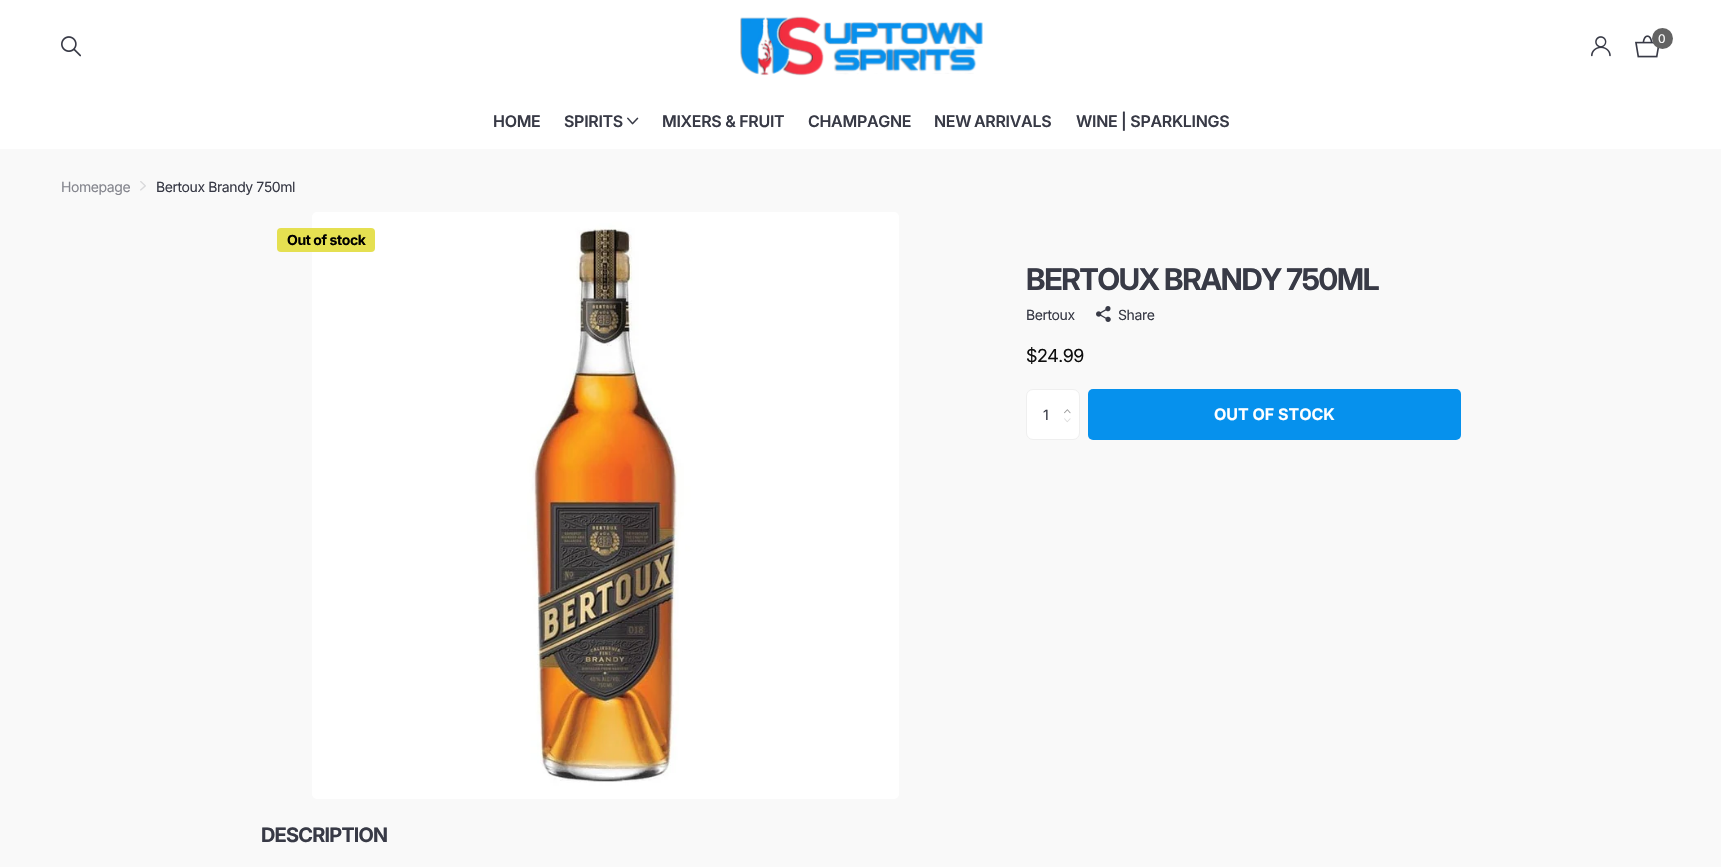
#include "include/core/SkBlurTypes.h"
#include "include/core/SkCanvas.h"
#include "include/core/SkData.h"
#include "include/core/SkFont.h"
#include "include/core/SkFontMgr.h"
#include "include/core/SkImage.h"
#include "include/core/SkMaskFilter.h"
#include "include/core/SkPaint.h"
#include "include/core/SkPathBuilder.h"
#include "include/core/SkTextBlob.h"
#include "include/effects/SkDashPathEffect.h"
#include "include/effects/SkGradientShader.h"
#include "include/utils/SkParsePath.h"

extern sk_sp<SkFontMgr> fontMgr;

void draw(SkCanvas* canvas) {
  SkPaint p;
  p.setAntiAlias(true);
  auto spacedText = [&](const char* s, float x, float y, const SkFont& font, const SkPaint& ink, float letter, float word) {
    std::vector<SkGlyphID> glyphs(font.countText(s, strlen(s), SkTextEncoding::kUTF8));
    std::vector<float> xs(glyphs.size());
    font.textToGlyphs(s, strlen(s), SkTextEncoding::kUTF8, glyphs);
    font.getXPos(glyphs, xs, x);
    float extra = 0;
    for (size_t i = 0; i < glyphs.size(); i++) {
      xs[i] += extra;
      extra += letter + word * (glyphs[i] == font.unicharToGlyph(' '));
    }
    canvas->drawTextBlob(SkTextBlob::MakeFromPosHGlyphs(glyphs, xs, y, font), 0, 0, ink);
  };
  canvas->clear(SkColorSetRGB(249, 249, 249));
  p.setColor(SK_ColorWHITE);
  canvas->drawRect(SkRect::MakeLTRB(0, 0, 1721, 149), p);
  canvas->drawImageRect(SkImages::DeferredFromEncodedData(SkData::MakeFromFileName("images/1.png")), SkRect::MakeLTRB(61, 36, 81, 57), SkSamplingOptions());
  canvas->drawImageRect(SkImages::DeferredFromEncodedData(SkData::MakeFromFileName("images/2.png")), SkRect::MakeLTRB(740, 16, 983, 76), SkSamplingOptions());
  canvas->drawImageRect(SkImages::DeferredFromEncodedData(SkData::MakeFromFileName("images/3.png")), SkRect::MakeLTRB(1591, 36, 1611, 57), SkSamplingOptions());
  canvas->drawImageRect(SkImages::DeferredFromEncodedData(SkData::MakeFromFileName("images/4.png")), SkRect::MakeLTRB(1635, 35, 1659, 58), SkSamplingOptions());
  p.setColor(SkColorSetRGB(99, 99, 99));
  canvas->drawCircle(1662.5f, 38.5f, 10.5f, p);
  canvas->drawImageRect(SkImages::DeferredFromEncodedData(SkData::MakeFromFileName("images/5.png")), SkRect::MakeLTRB(627, 117, 639, 125), SkSamplingOptions());
  canvas->drawImageRect(SkImages::DeferredFromEncodedData(SkData::MakeFromFileName("images/6.png")), SkRect::MakeLTRB(140, 181, 146, 191), SkSamplingOptions());
  canvas->drawImageRect(SkImages::DeferredFromEncodedData(SkData::MakeFromFileName("images/7.png")), SkRect::MakeLTRB(312, 212, 899, 799), SkSamplingOptions());
  p.setColor(SkColorSetRGB(229, 224, 81));
  canvas->drawRoundRect(SkRect::MakeLTRB(277, 228, 375, 252), 4, 4, p);
  canvas->drawImageRect(SkImages::DeferredFromEncodedData(SkData::MakeFromFileName("images/8.png")), SkRect::MakeLTRB(1096, 306, 1111, 322), SkSamplingOptions());
  p.setColor(SK_ColorWHITE);
  canvas->drawRoundRect(SkRect::MakeLTRB(1026.5f, 389.5f, 1079.5f, 439.5f), 6.5f, 6.5f, p);
  p.setStyle(SkPaint::kStroke_Style);
  p.setStrokeWidth(1);
  p.setColor(SkColorSetRGB(239, 239, 239));
  canvas->drawRoundRect(SkRect::MakeLTRB(1026.5f, 389.5f, 1079.5f, 439.5f), 6.5f, 6.5f, p);
  canvas->drawImageRect(SkImages::DeferredFromEncodedData(SkData::MakeFromFileName("images/9.png")), SkRect::MakeLTRB(1064, 409, 1071, 414), SkSamplingOptions());
  canvas->drawImageRect(SkImages::DeferredFromEncodedData(SkData::MakeFromFileName("images/10.png")), SkRect::MakeLTRB(1064, 418, 1071, 423), SkSamplingOptions());
  p.setStyle(SkPaint::kFill_Style);
  p.setColor(SkColorSetRGB(6, 145, 237));
  canvas->drawRoundRect(SkRect::MakeLTRB(1088, 389, 1461, 440), 5, 5, p);
  SkFont font1(fontMgr->matchFamilyStyle("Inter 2", SkFontStyle::Normal()), 12);
  font1.setSubpixel(true);
  p.setColor(SK_ColorWHITE);
  canvas->drawString("0", 1658, 43, font1, p);
  SkFont font2(fontMgr->matchFamilyStyle("Inter", SkFontStyle(600, SkFontStyle::kNormal_Width, SkFontStyle::kUpright_Slant)), 16);
  font2.setSubpixel(true);
  p.setColor(SkColorSetRGB(56, 58, 70));
  spacedText("HOME", 493, 127, font2, p, -0.3f, 0);
  spacedText("SPIRITS", 564, 127, font2, p, -0.3f, 0);
  spacedText("MIXERS & FRUIT", 662, 127, font2, p, -0.3f, 0);
  spacedText("CHAMPAGNE", 808, 127, font2, p, -0.3f, 0);
  spacedText("NEW ARRIVALS", 934, 127, font2, p, -0.3f, -1);
  spacedText("WINE | SPARKLINGS", 1076, 127, font2, p, -0.3f, 0);
  SkFont font3(fontMgr->matchFamilyStyle("Inter 2", SkFontStyle::Normal()), 14);
  font3.setSubpixel(true);
  p.setColor(SkColorSetRGB(133, 134, 142));
  spacedText("Homepage", 61, 192, font3, p, -0.4f, 0);
  p.setColor(SkColorSetRGB(56, 58, 70));
  spacedText("Bertoux Brandy 750ml", 156, 192, font3, p, -0.4f, 0);
  SkFont font4(fontMgr->matchFamilyStyle("Inter", SkFontStyle::Bold()), 14);
  font4.setSubpixel(true);
  p.setColor(SK_ColorBLACK);
  spacedText("Out of stock", 287, 245, font4, p, -0.4f, 0);
  SkFont font5(fontMgr->matchFamilyStyle("Inter 2", SkFontStyle::Bold()), 20);
  font5.setSubpixel(true);
  p.setColor(SkColorSetRGB(56, 58, 70));
  spacedText("DESCRIPTION", 261, 842, font5, p, -0.75f, 0);
  SkFont font6(fontMgr->matchFamilyStyle("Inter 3", SkFontStyle::Bold()), 30);
  font6.setSubpixel(true);
  spacedText("BERTOUX BRANDY 750ML", 1026, 290, font6, p, -1.2f, 0);
  spacedText("Bertoux", 1026, 320, font3, p, -0.4f, 0);
  spacedText("Share", 1118, 320, font3, p, -0.4f, 0);
  SkFont font7(fontMgr->matchFamilyStyle("Inter", SkFontStyle::Normal()), 18);
  font7.setSubpixel(true);
  p.setColor(SkColorSetRGB(14, 14, 14));
  spacedText("$24.99", 1026, 362, font7, p, -0.5f, 0);
  p.setColor(SkColorSetRGB(56, 58, 70));
  spacedText("1", 1043, 420, font3, p, -0.4f, 0);
  SkFont font8(fontMgr->matchFamilyStyle("Inter", SkFontStyle::Bold()), 16);
  font8.setSubpixel(true);
  p.setColor(SK_ColorWHITE);
  canvas->drawString("OUT OF STOCK", 1214, 420, font8, p);
}
